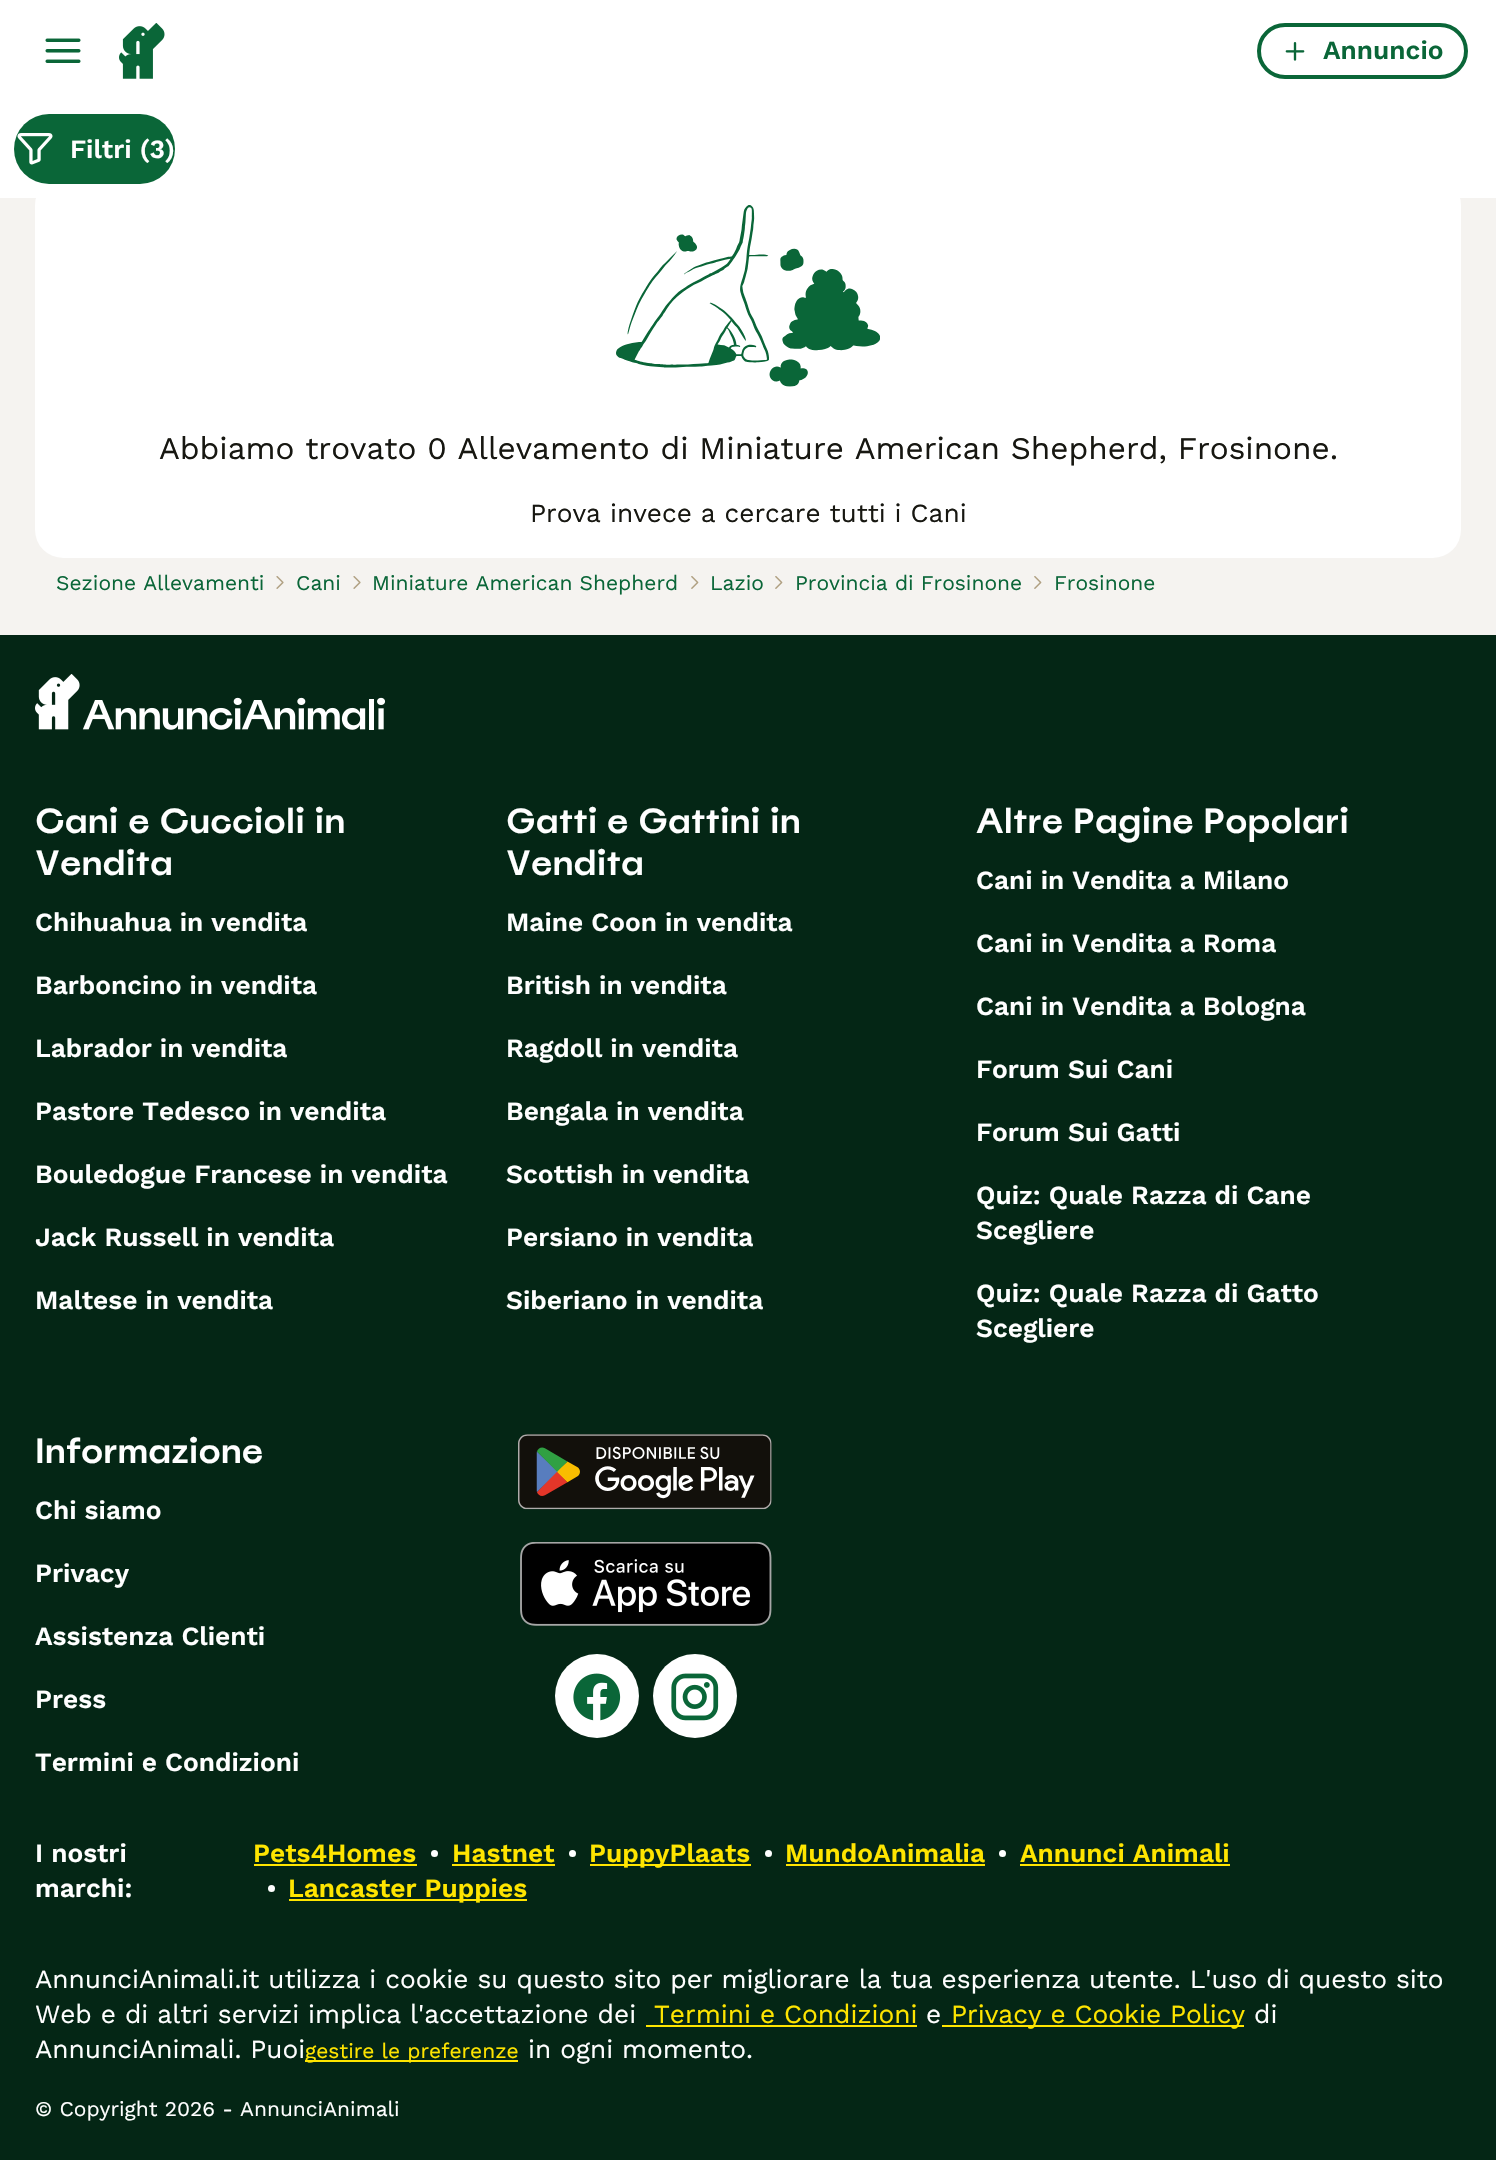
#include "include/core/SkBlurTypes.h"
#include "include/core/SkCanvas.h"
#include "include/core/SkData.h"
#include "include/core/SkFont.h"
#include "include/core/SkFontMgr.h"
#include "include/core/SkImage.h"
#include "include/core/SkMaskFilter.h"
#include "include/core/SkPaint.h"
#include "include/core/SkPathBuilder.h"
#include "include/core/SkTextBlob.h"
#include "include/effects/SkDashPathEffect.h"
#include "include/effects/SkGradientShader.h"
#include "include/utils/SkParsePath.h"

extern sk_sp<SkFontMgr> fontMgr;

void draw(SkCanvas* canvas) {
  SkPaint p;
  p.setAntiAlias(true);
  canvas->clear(SkColorSetRGB(245, 243, 240));
  p.setColor(SK_ColorWHITE);
  canvas->drawRoundRect(SkRect::MakeLTRB(35, 177, 1461, 558), 28, 28, p);
  canvas->drawRect(SkRect::MakeLTRB(0, 0, 1496, 198), p);
  canvas->drawImageRect(SkImages::DeferredFromEncodedData(SkData::MakeFromFileName("images/1.png")), SkRect::MakeLTRB(45, 38, 81, 63), SkSamplingOptions());
  canvas->drawImageRect(SkImages::DeferredFromEncodedData(SkData::MakeFromFileName("images/2.png")), SkRect::MakeLTRB(119, 23, 165, 79), SkSamplingOptions());
  p.setStyle(SkPaint::kStroke_Style);
  p.setStrokeWidth(4);
  p.setColor(SkColorSetRGB(10, 102, 56));
  canvas->drawRoundRect(SkRect::MakeLTRB(1259, 25, 1466, 77), 26, 26, p);
  canvas->drawImageRect(SkImages::DeferredFromEncodedData(SkData::MakeFromFileName("images/3.png")), SkRect::MakeLTRB(1285, 42, 1305, 61), SkSamplingOptions());
  p.setStyle(SkPaint::kFill_Style);
  canvas->drawRoundRect(SkRect::MakeLTRB(14, 114, 175, 184), 35, 35, p);
  canvas->drawImageRect(SkImages::DeferredFromEncodedData(SkData::MakeFromFileName("images/4.png")), SkRect::MakeLTRB(17, 133, 53, 165), SkSamplingOptions());
  canvas->drawImageRect(SkImages::DeferredFromEncodedData(SkData::MakeFromFileName("images/5.png")), SkRect::MakeLTRB(616, 205, 880, 387), SkSamplingOptions());
  canvas->drawImageRect(SkImages::DeferredFromEncodedData(SkData::MakeFromFileName("images/6.png")), SkRect::MakeLTRB(276, 576, 284, 589), SkSamplingOptions());
  canvas->drawImageRect(SkImages::DeferredFromEncodedData(SkData::MakeFromFileName("images/6.png")), SkRect::MakeLTRB(353, 576, 361, 589), SkSamplingOptions());
  canvas->drawImageRect(SkImages::DeferredFromEncodedData(SkData::MakeFromFileName("images/7.png")), SkRect::MakeLTRB(691, 576, 699, 589), SkSamplingOptions());
  canvas->drawImageRect(SkImages::DeferredFromEncodedData(SkData::MakeFromFileName("images/7.png")), SkRect::MakeLTRB(775, 576, 783, 589), SkSamplingOptions());
  canvas->drawImageRect(SkImages::DeferredFromEncodedData(SkData::MakeFromFileName("images/7.png")), SkRect::MakeLTRB(1034, 576, 1042, 589), SkSamplingOptions());
  p.setColor(SkColorSetRGB(4, 38, 21));
  canvas->drawRect(SkRect::MakeLTRB(0, 635, 1496, 2160), p);
  canvas->drawImageRect(SkImages::DeferredFromEncodedData(SkData::MakeFromFileName("images/8.png")), SkRect::MakeLTRB(35, 674, 386, 730), SkSamplingOptions());
  canvas->drawImageRect(SkImages::DeferredFromEncodedData(SkData::MakeFromFileName("images/9.png")), SkRect::MakeLTRB(518, 1434, 772, 1510), SkSamplingOptions());
  canvas->drawImageRect(SkImages::DeferredFromEncodedData(SkData::MakeFromFileName("images/10.png")), SkRect::MakeLTRB(520, 1542, 772, 1626), SkSamplingOptions());
  p.setColor(SK_ColorWHITE);
  canvas->drawCircle(597, 1696, 42, p);
  canvas->drawImageRect(SkImages::DeferredFromEncodedData(SkData::MakeFromFileName("images/11.png")), SkRect::MakeLTRB(573, 1673, 621, 1721), SkSamplingOptions());
  canvas->drawCircle(695, 1696, 42, p);
  canvas->drawImageRect(SkImages::DeferredFromEncodedData(SkData::MakeFromFileName("images/12.png")), SkRect::MakeLTRB(671, 1673, 719, 1721), SkSamplingOptions());
  p.setColor(SkColorSetRGB(255, 229, 0));
  canvas->drawRect(SkRect::MakeLTRB(254, 1864, 417, 1866), p);
  p.setColor(SK_ColorWHITE);
  canvas->drawCircle(434.5f, 1853.5f, 3.5f, p);
  p.setColor(SkColorSetRGB(255, 229, 0));
  canvas->drawRect(SkRect::MakeLTRB(452, 1864, 555, 1866), p);
  p.setColor(SK_ColorWHITE);
  canvas->drawCircle(572.5f, 1853.5f, 3.5f, p);
  p.setColor(SkColorSetRGB(255, 229, 0));
  canvas->drawRect(SkRect::MakeLTRB(590, 1864, 751, 1866), p);
  p.setColor(SK_ColorWHITE);
  canvas->drawCircle(768.5f, 1853.5f, 3.5f, p);
  p.setColor(SkColorSetRGB(255, 229, 0));
  canvas->drawRect(SkRect::MakeLTRB(786, 1864, 985, 1866), p);
  p.setColor(SK_ColorWHITE);
  canvas->drawCircle(1002.5f, 1853.5f, 3.5f, p);
  p.setColor(SkColorSetRGB(255, 229, 0));
  canvas->drawRect(SkRect::MakeLTRB(1020, 1864, 1230, 1866), p);
  p.setColor(SK_ColorWHITE);
  canvas->drawCircle(271.5f, 1888.5f, 3.5f, p);
  p.setColor(SkColorSetRGB(255, 229, 0));
  canvas->drawRect(SkRect::MakeLTRB(289, 1899, 527, 1901), p);
  canvas->drawRect(SkRect::MakeLTRB(646, 2025, 917, 2027), p);
  canvas->drawRect(SkRect::MakeLTRB(942, 2025, 1244, 2027), p);
  canvas->drawRect(SkRect::MakeLTRB(305, 2060, 518, 2062), p);
  SkFont font1(fontMgr->matchFamilyStyle("Work Sans", SkFontStyle(600, SkFontStyle::kNormal_Width, SkFontStyle::kUpright_Slant)), 26.25f);
  font1.setSubpixel(true);
  p.setColor(SkColorSetRGB(10, 102, 56));
  canvas->drawString("Annuncio", 1323, 59, font1, p);
  p.setColor(SK_ColorWHITE);
  canvas->drawString("Filtri (3)", 70, 158, font1, p);
  SkFont font2(fontMgr->matchFamilyStyle("Work Sans", SkFontStyle::Normal()), 31.5f);
  font2.setSubpixel(true);
  p.setColor(SkColorSetRGB(23, 23, 17));
  canvas->drawString("Abbiamo trovato 0 Allevamento di Miniature American Shepherd, Frosinone.", 159, 459, font2, p);
  SkFont font3(fontMgr->matchFamilyStyle("Work Sans", SkFontStyle::Normal()), 26.25f);
  font3.setSubpixel(true);
  canvas->drawString("Prova invece a cercare tutti i Cani", 530, 522, font3, p);
  SkFont font4(fontMgr->matchFamilyStyle("Work Sans", SkFontStyle::Normal()), 21);
  font4.setSubpixel(true);
  p.setColor(SkColorSetRGB(10, 102, 56));
  canvas->drawString("Sezione Allevamenti", 56, 590, font4, p);
  canvas->drawString("Cani", 296, 590, font4, p);
  canvas->drawString("Miniature American Shepherd", 372, 590, font4, p);
  canvas->drawString("Lazio", 710, 590, font4, p);
  canvas->drawString("Provincia di Frosinone", 795, 590, font4, p);
  canvas->drawString("Frosinone", 1054, 590, font4, p);
  SkFont font5(fontMgr->matchFamilyStyle("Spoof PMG", SkFontStyle(500, SkFontStyle::kNormal_Width, SkFontStyle::kUpright_Slant)), 35);
  font5.setSubpixel(true);
  p.setColor(SK_ColorWHITE);
  canvas->drawString("Cani e Cuccioli in", 35, 833, font5, p);
  canvas->drawString("Vendita", 35, 875, font5, p);
  canvas->drawString("Chihuahua in vendita", 35, 931, font1, p);
  canvas->drawString("Barboncino in vendita", 35, 994, font1, p);
  canvas->drawString("Labrador in vendita", 35, 1057, font1, p);
  canvas->drawString("Pastore Tedesco in vendita", 35, 1120, font1, p);
  canvas->drawString("Bouledogue Francese in vendita", 35, 1183, font1, p);
  canvas->drawString("Jack Russell in vendita", 35, 1246, font1, p);
  canvas->drawString("Maltese in vendita", 35, 1309, font1, p);
  canvas->drawString("Gatti e Gattini in", 506, 833, font5, p);
  canvas->drawString("Vendita", 506, 875, font5, p);
  canvas->drawString("Maine Coon in vendita", 506, 931, font1, p);
  canvas->drawString("British in vendita", 506, 994, font1, p);
  canvas->drawString("Ragdoll in vendita", 506, 1057, font1, p);
  canvas->drawString("Bengala in vendita", 506, 1120, font1, p);
  canvas->drawString("Scottish in vendita", 506, 1183, font1, p);
  canvas->drawString("Persiano in vendita", 506, 1246, font1, p);
  canvas->drawString("Siberiano in vendita", 506, 1309, font1, p);
  canvas->drawString("Altre Pagine Popolari", 976, 833, font5, p);
  canvas->drawString("Cani in Vendita a Milano", 976, 889, font1, p);
  canvas->drawString("Cani in Vendita a Roma", 976, 952, font1, p);
  canvas->drawString("Cani in Vendita a Bologna", 976, 1015, font1, p);
  canvas->drawString("Forum Sui Cani", 976, 1078, font1, p);
  canvas->drawString("Forum Sui Gatti", 976, 1141, font1, p);
  canvas->drawString("Quiz: Quale Razza di Cane", 976, 1204, font1, p);
  canvas->drawString("Scegliere", 976, 1239, font1, p);
  canvas->drawString("Quiz: Quale Razza di Gatto", 976, 1302, font1, p);
  canvas->drawString("Scegliere", 976, 1337, font1, p);
  canvas->drawString("Informazione", 35, 1463, font5, p);
  canvas->drawString("Chi siamo", 35, 1519, font1, p);
  canvas->drawString("Privacy", 35, 1582, font1, p);
  canvas->drawString("Assistenza Clienti", 35, 1645, font1, p);
  canvas->drawString("Press", 35, 1708, font1, p);
  canvas->drawString("Termini e Condizioni", 35, 1771, font1, p);
  canvas->drawString("I nostri", 35, 1862, font1, p);
  canvas->drawString("marchi:", 35, 1897, font1, p);
  p.setColor(SkColorSetRGB(255, 229, 0));
  canvas->drawString("Pets4Homes", 253, 1862, font1, p);
  canvas->drawString("Hastnet", 452, 1862, font1, p);
  canvas->drawString("PuppyPlaats", 589, 1862, font1, p);
  canvas->drawString("MundoAnimalia", 785, 1862, font1, p);
  canvas->drawString("Annunci Animali", 1020, 1862, font1, p);
  canvas->drawString("Lancaster Puppies", 288, 1897, font1, p);
  p.setColor(SK_ColorWHITE);
  canvas->drawString("AnnunciAnimali.it utilizza i cookie su questo sito per migliorare la tua esperienza utente. L'uso di questo sito", 35, 1988, font3, p);
  canvas->drawString("Web e di altri servizi implica l'accettazione dei", 35, 2023, font3, p);
  p.setColor(SkColorSetRGB(255, 229, 0));
  canvas->drawString("Termini e Condizioni", 654, 2023, font3, p);
  p.setColor(SK_ColorWHITE);
  canvas->drawString("e", 926, 2023, font3, p);
  p.setColor(SkColorSetRGB(255, 229, 0));
  canvas->drawString("Privacy e Cookie Policy", 951, 2023, font3, p);
  p.setColor(SK_ColorWHITE);
  canvas->drawString("di", 1254, 2023, font3, p);
  canvas->drawString("AnnunciAnimali. Puoi", 35, 2058, font3, p);
  p.setColor(SkColorSetRGB(255, 229, 0));
  canvas->drawString("gestire le preferenze", 305, 2058, font4, p);
  p.setColor(SK_ColorWHITE);
  canvas->drawString("in ogni momento.", 528, 2058, font3, p);
  canvas->drawString("© Copyright 2026 - AnnunciAnimali", 35, 2116, font4, p);
}
